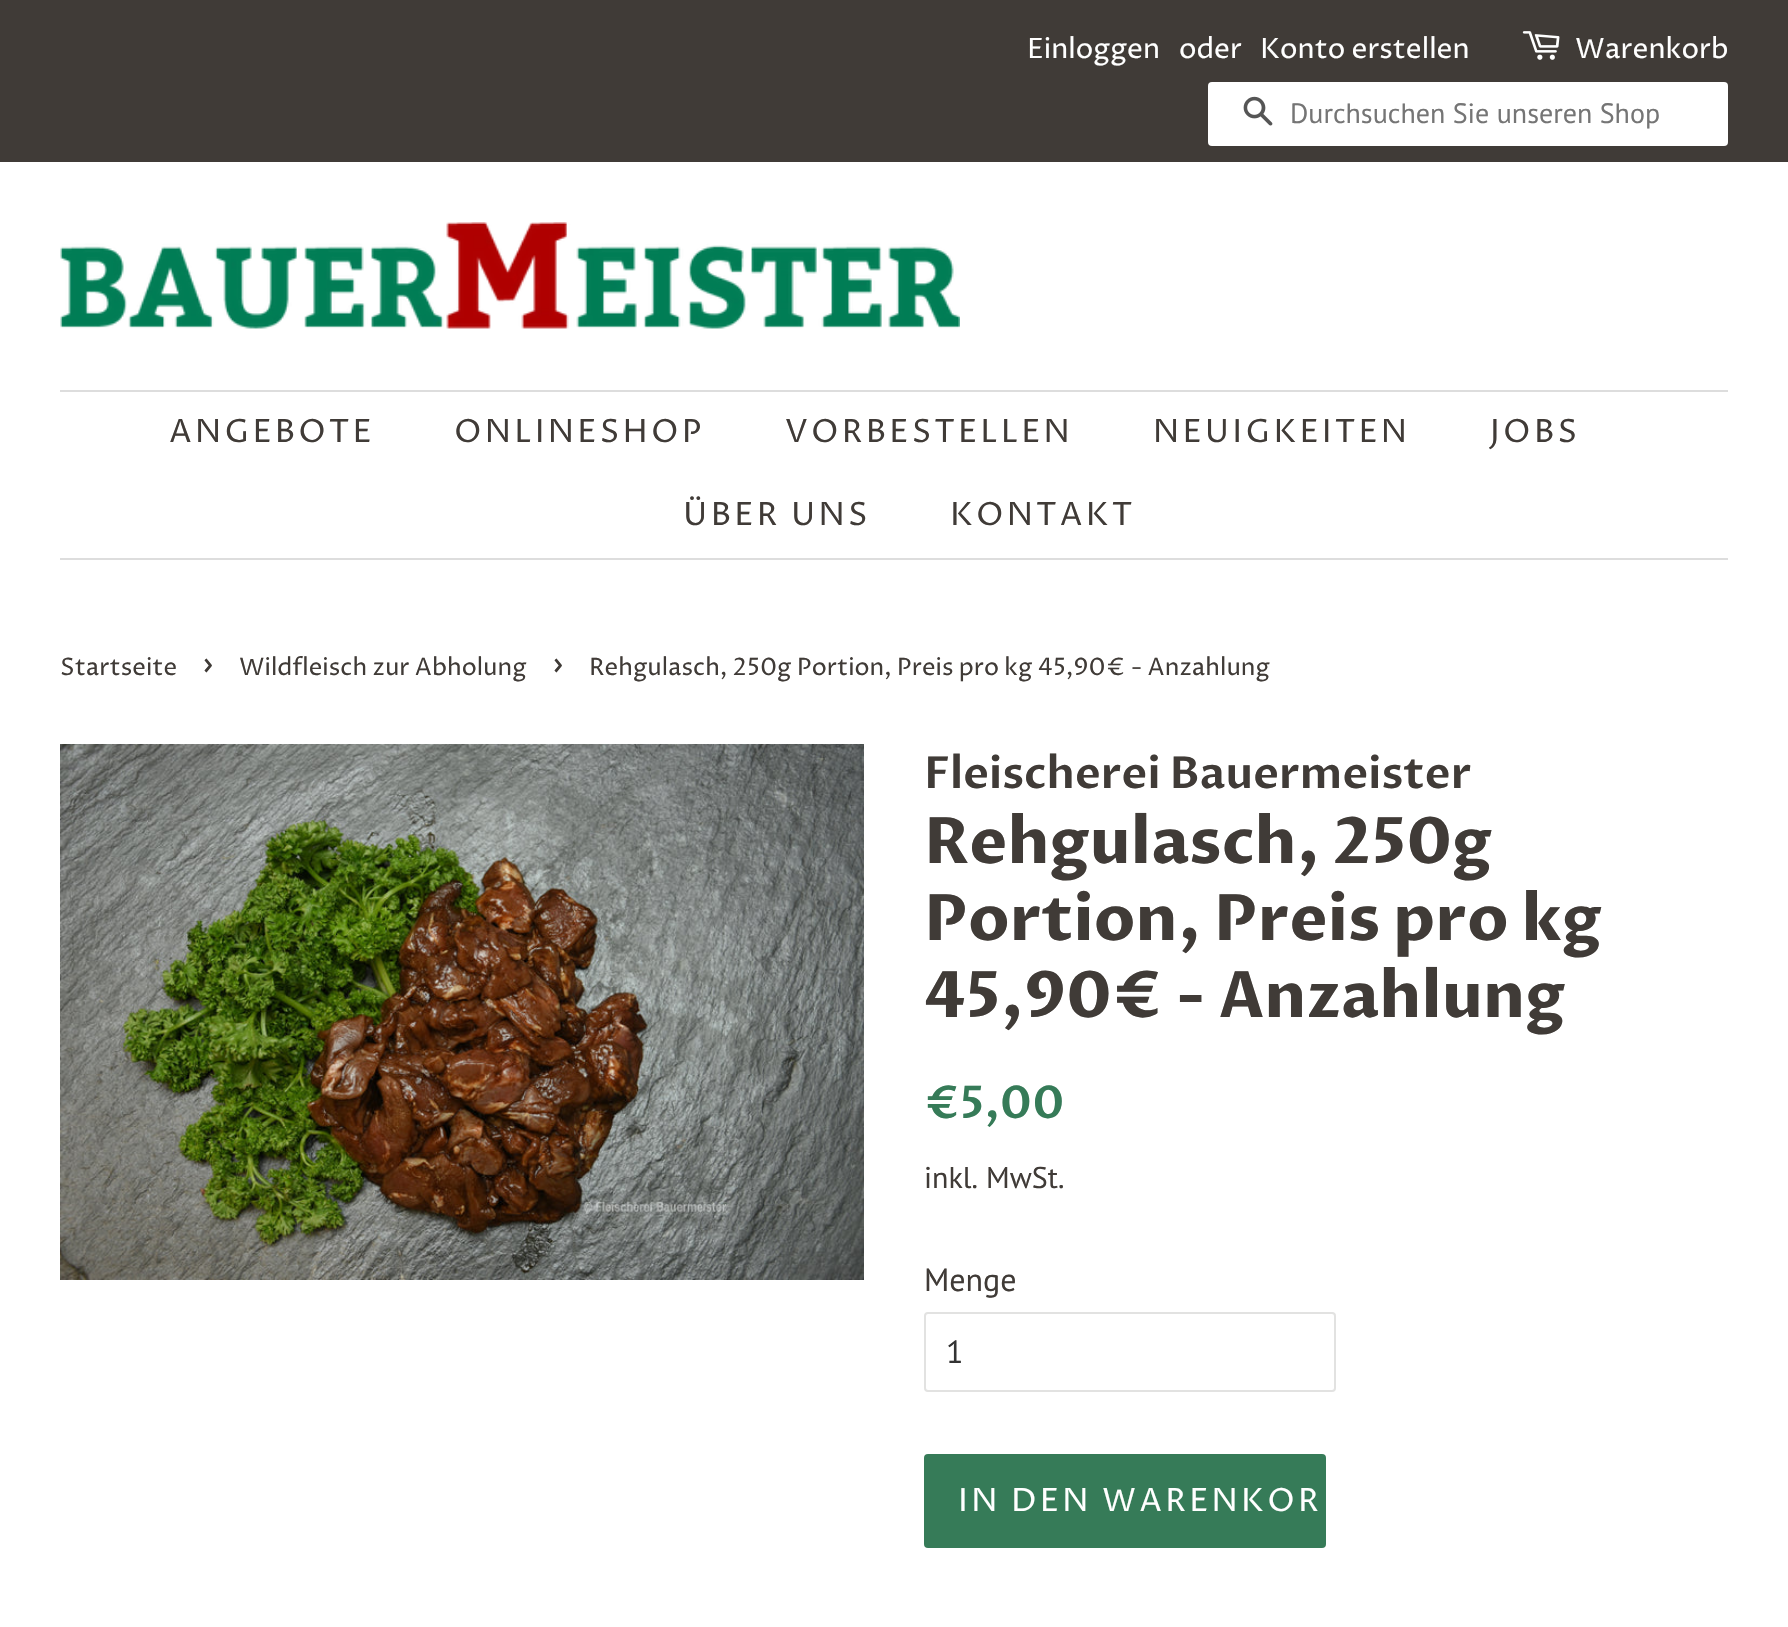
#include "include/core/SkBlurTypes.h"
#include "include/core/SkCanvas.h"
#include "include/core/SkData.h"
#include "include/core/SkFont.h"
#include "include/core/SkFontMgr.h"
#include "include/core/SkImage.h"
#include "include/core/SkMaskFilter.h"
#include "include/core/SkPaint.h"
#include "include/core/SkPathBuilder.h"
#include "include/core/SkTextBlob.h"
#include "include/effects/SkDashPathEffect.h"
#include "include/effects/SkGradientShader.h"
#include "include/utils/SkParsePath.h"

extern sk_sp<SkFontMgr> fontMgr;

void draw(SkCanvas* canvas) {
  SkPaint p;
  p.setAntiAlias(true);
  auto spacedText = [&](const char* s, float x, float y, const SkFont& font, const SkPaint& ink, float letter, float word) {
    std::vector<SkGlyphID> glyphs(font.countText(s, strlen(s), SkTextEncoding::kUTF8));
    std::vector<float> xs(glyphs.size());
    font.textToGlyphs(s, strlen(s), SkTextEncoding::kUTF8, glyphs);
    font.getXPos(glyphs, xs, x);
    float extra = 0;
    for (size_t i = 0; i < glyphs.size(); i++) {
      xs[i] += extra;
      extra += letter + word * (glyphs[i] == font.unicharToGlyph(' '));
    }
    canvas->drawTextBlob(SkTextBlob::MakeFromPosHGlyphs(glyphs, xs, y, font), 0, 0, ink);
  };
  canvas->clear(SK_ColorWHITE);
  p.setColor(SkColorSetRGB(64, 59, 55));
  canvas->drawRect(SkRect::MakeLTRB(0, 0, 1788, 162), p);
  canvas->drawImageRect(SkImages::DeferredFromEncodedData(SkData::MakeFromFileName("images/1.png")), SkRect::MakeLTRB(1522, 31, 1560, 60), SkSamplingOptions());
  p.setColor(SK_ColorWHITE);
  canvas->drawRoundRect(SkRect::MakeLTRB(1208, 82, 1728, 146), 4, 4, p);
  canvas->drawImageRect(SkImages::DeferredFromEncodedData(SkData::MakeFromFileName("images/2.png")), SkRect::MakeLTRB(1243, 96, 1273, 126), SkSamplingOptions());
  canvas->drawImageRect(SkImages::DeferredFromEncodedData(SkData::MakeFromFileName("images/3.png")), SkRect::MakeLTRB(60, 222, 960, 329), SkSamplingOptions());
  p.setColor(SkColorSetRGB(221, 221, 221));
  canvas->drawRect(SkRect::MakeLTRB(60, 390, 1728, 392), p);
  canvas->drawRect(SkRect::MakeLTRB(60, 558, 1728, 560), p);
  canvas->drawImageRect(SkImages::DeferredFromEncodedData(SkData::MakeFromFileName("images/4.png")), SkRect::MakeLTRB(60, 744, 864, 1280), SkSamplingOptions());
  p.setStyle(SkPaint::kStroke_Style);
  p.setStrokeWidth(2);
  p.setColor(SkColorSetRGB(226, 226, 225));
  canvas->drawRoundRect(SkRect::MakeLTRB(925, 1313, 1335, 1391), 3, 3, p);
  p.setStyle(SkPaint::kFill_Style);
  p.setColor(SkColorSetRGB(54, 123, 88));
  canvas->drawRoundRect(SkRect::MakeLTRB(924, 1454, 1326, 1548), 4, 4, p);
  SkFont font1(fontMgr->matchFamilyStyle("Proza Libre", SkFontStyle::Normal()), 28);
  font1.setSubpixel(true);
  p.setColor(SK_ColorWHITE);
  canvas->drawString("Einloggen", 1027, 58, font1, p);
  canvas->drawString("oder", 1179, 58, font1, p);
  canvas->drawString("Konto erstellen", 1260, 58, font1, p);
  canvas->drawString("Warenkorb", 1575, 58, font1, p);
  SkFont font2(fontMgr->matchFamilyStyle("PT Sans", SkFontStyle::Normal()), 28);
  font2.setSubpixel(true);
  p.setColor(SkColorSetRGB(117, 117, 117));
  canvas->drawString("Durchsuchen Sie unseren Shop", 1290, 123, font2, p);
  SkFont font3(fontMgr->matchFamilyStyle("Proza Libre", SkFontStyle::Normal()), 32);
  font3.setSubpixel(true);
  p.setColor(SkColorSetRGB(64, 59, 55));
  spacedText("ANGEBOTE", 169, 442, font3, p, 3.25f, 0);
  spacedText("ONLINESHOP", 454, 442, font3, p, 3.25f, 0);
  spacedText("VORBESTELLEN", 785, 442, font3, p, 3.25f, 0);
  spacedText("NEUIGKEITEN", 1153, 442, font3, p, 3.25f, 0);
  spacedText("JOBS", 1490, 442, font3, p, 3.25f, 0);
  spacedText("ÜBER UNS", 683, 525, font3, p, 3.25f, 0);
  spacedText("KONTAKT", 950, 525, font3, p, 3.25f, 0);
  SkFont font4(fontMgr->matchFamilyStyle("Proza Libre", SkFontStyle::Normal()), 24);
  font4.setSubpixel(true);
  canvas->drawString("Startseite", 60, 675, font4, p);
  SkFont font5(fontMgr->matchFamilyStyle("Proza Libre", SkFontStyle::Normal()), 34);
  font5.setSubpixel(true);
  canvas->drawString("›", 202, 675, font5, p);
  canvas->drawString("Wildfleisch zur Abholung", 239, 675, font4, p);
  canvas->drawString("›", 552, 675, font5, p);
  canvas->drawString("Rehgulasch, 250g Portion, Preis pro kg 45,90€ - Anzahlung", 589, 675, font4, p);
  SkFont font6(fontMgr->matchFamilyStyle("Proza Libre", SkFontStyle(600, SkFontStyle::kNormal_Width, SkFontStyle::kUpright_Slant)), 44);
  font6.setSubpixel(true);
  canvas->drawString("Fleischerei Bauermeister", 924, 788, font6, p);
  SkFont font7(fontMgr->matchFamilyStyle("Proza Libre", SkFontStyle::Bold()), 64);
  font7.setSubpixel(true);
  canvas->drawString("Rehgulasch, 250g", 924, 863, font7, p);
  canvas->drawString("Portion, Preis pro kg", 924, 940, font7, p);
  canvas->drawString("45,90€ - Anzahlung", 924, 1017, font7, p);
  SkFont font8(fontMgr->matchFamilyStyle("Proza Libre", SkFontStyle(600, SkFontStyle::kNormal_Width, SkFontStyle::kUpright_Slant)), 45);
  font8.setSubpixel(true);
  p.setColor(SkColorSetRGB(54, 123, 88));
  canvas->drawString("€5,00", 924, 1118, font8, p);
  SkFont font9(fontMgr->matchFamilyStyle("PT Sans", SkFontStyle::Normal()), 30);
  font9.setSubpixel(true);
  p.setColor(SkColorSetRGB(64, 59, 55));
  canvas->drawString("inkl. MwSt.", 924, 1188, font9, p);
  SkFont font10(fontMgr->matchFamilyStyle("PT Sans", SkFontStyle::Normal()), 32);
  font10.setSubpixel(true);
  canvas->drawString("Menge", 924, 1291, font10, p);
  p.setColor(SkColorSetRGB(51, 51, 51));
  canvas->drawString("1", 946, 1363, font10, p);
  p.setColor(SK_ColorWHITE);
  spacedText("IN DEN WARENKOR", 958, 1511, font3, p, 3.25f, 0);
}
